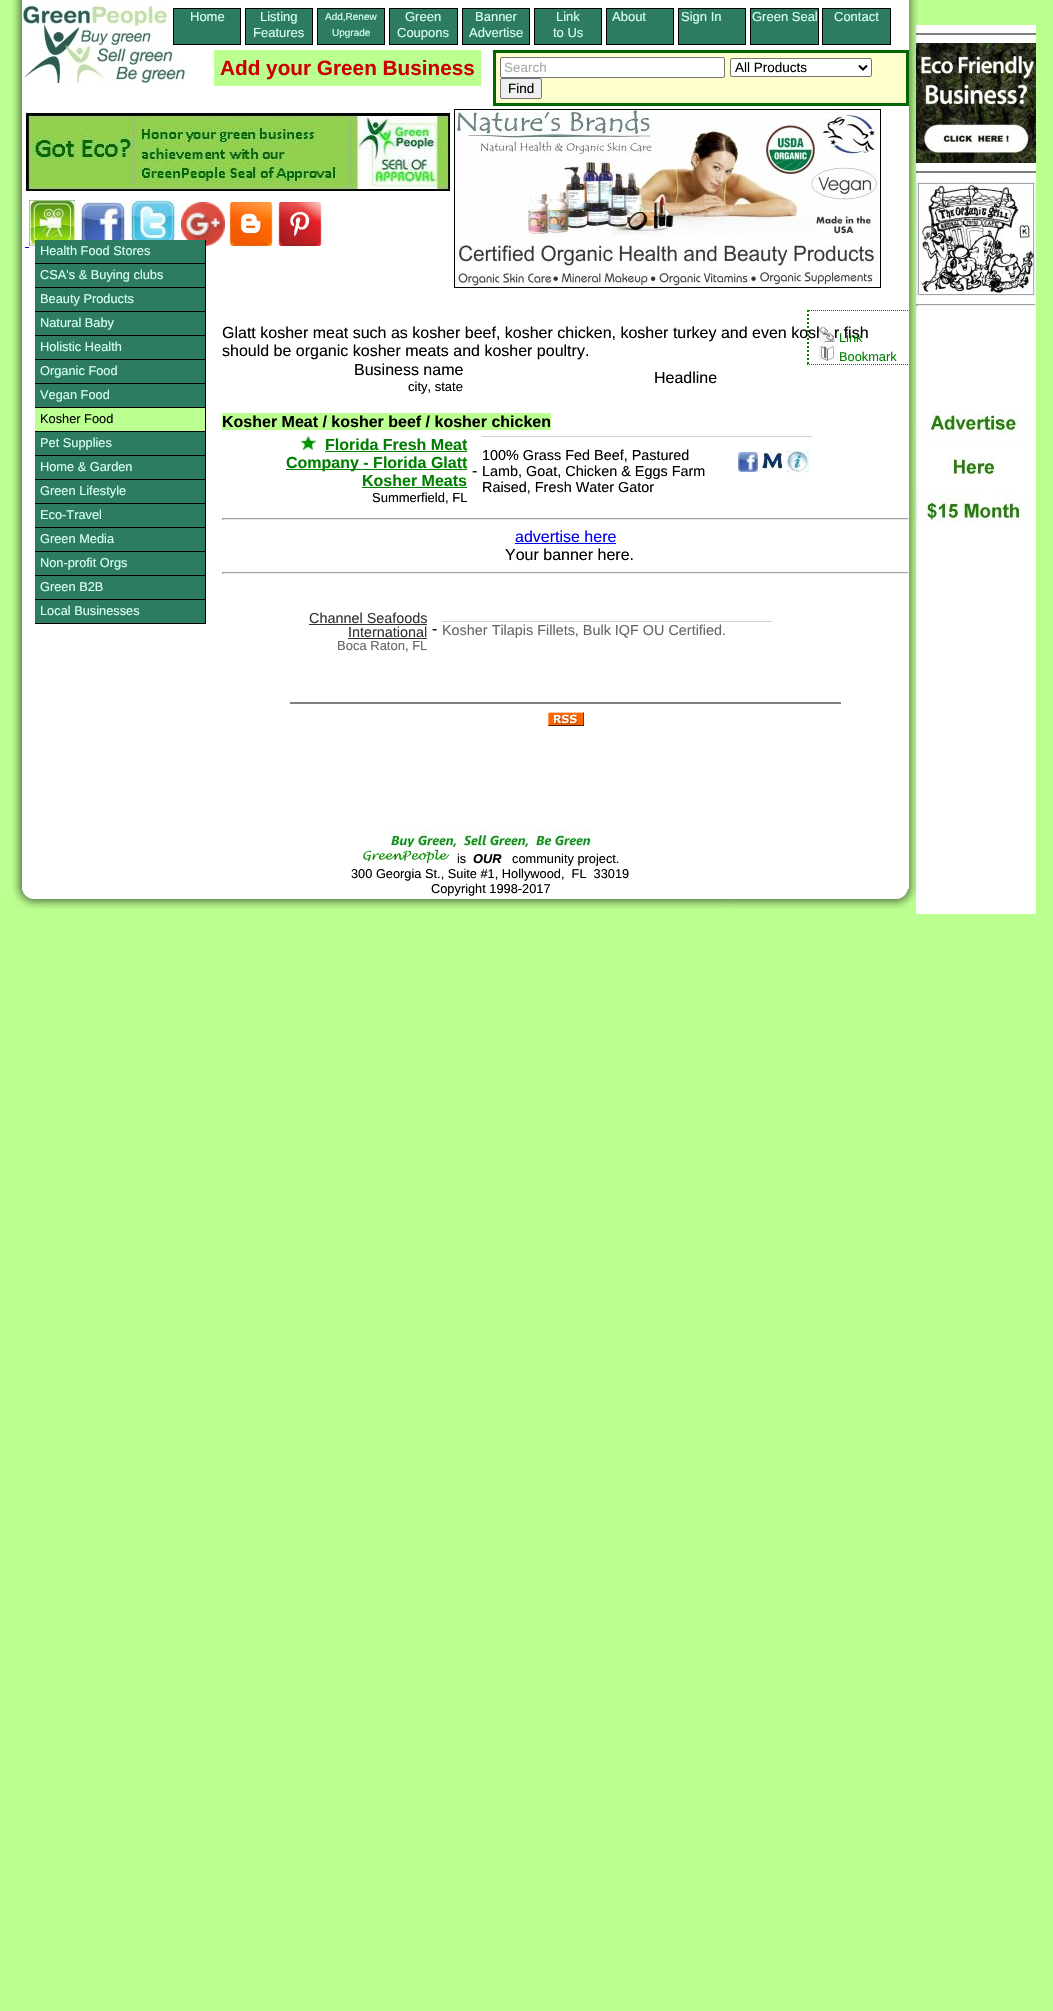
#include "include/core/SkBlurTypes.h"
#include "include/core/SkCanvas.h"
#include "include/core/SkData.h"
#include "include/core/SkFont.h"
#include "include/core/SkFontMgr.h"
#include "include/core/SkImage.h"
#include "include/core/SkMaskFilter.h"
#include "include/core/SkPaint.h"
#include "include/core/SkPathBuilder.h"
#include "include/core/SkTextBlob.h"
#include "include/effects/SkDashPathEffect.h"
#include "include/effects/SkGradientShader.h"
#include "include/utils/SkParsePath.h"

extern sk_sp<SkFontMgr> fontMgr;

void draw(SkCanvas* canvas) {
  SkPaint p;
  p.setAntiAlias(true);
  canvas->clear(SkColorSetRGB(188, 255, 145));
  p.setColor(SK_ColorWHITE);
  canvas->drawRect(SkRect::MakeLTRB(916, 25, 1036, 914), p);
  canvas->drawImageRect(SkImages::DeferredFromEncodedData(SkData::MakeFromFileName("images/1.png")), SkRect::MakeLTRB(897, 889, 918, 909), SkSamplingOptions());
  canvas->drawImageRect(SkImages::DeferredFromEncodedData(SkData::MakeFromFileName("images/2.png")), SkRect::MakeLTRB(12, 889, 897, 909), SkSamplingOptions());
  canvas->drawImageRect(SkImages::DeferredFromEncodedData(SkData::MakeFromFileName("images/3.png")), SkRect::MakeLTRB(12, 0, 22, 889), SkSamplingOptions());
  p.setColor(SkColorSetRGB(128, 128, 128));
  canvas->drawRect(SkRect::MakeLTRB(916, 33, 1036, 35), p);
  canvas->drawImageRect(SkImages::DeferredFromEncodedData(SkData::MakeFromFileName("images/23.png")), SkRect::MakeLTRB(916, 43, 1036, 163), SkSamplingOptions());
  canvas->drawRect(SkRect::MakeLTRB(916, 171, 1036, 173), p);
  canvas->drawImageRect(SkImages::DeferredFromEncodedData(SkData::MakeFromFileName("images/24.png")), SkRect::MakeLTRB(916, 181, 1036, 296), SkSamplingOptions());
  p.setColor(SkColorSetRGB(159, 159, 159));
  canvas->drawRect(SkRect::MakeLTRB(916, 304, 1036, 305), p);
  p.setColor(SkColorSetRGB(238, 238, 238));
  canvas->drawRect(SkRect::MakeLTRB(1035, 304, 1036, 306), p);
  canvas->drawRect(SkRect::MakeLTRB(916, 305, 1036, 306), p);
  p.setColor(SkColorSetRGB(159, 159, 159));
  canvas->drawRect(SkRect::MakeLTRB(916, 304, 917, 306), p);
  canvas->drawImageRect(SkImages::DeferredFromEncodedData(SkData::MakeFromFileName("images/25.png")), SkRect::MakeLTRB(916, 409, 1027, 522), SkSamplingOptions());
  canvas->drawImageRect(SkImages::DeferredFromEncodedData(SkData::MakeFromFileName("images/4.png")), SkRect::MakeLTRB(909, 0, 918, 889), SkSamplingOptions());
  p.setColor(SK_ColorWHITE);
  canvas->drawRect(SkRect::MakeLTRB(22, 0, 909, 889), p);
  canvas->drawImageRect(SkImages::DeferredFromEncodedData(SkData::MakeFromFileName("images/18.png")), SkRect::MakeLTRB(23, 3, 186, 83), SkSamplingOptions());
  p.setColor(SkColorSetRGB(45, 124, 96));
  canvas->drawRect(SkRect::MakeLTRB(173.5f, 8.5f, 240.5f, 44.5f), p);
  p.setStyle(SkPaint::kStroke_Style);
  p.setStrokeWidth(1);
  p.setColor(SK_ColorBLACK);
  canvas->drawRect(SkRect::MakeLTRB(173.5f, 8.5f, 240.5f, 44.5f), p);
  p.setStyle(SkPaint::kFill_Style);
  p.setColor(SkColorSetRGB(45, 124, 96));
  canvas->drawRect(SkRect::MakeLTRB(245.5f, 8.5f, 312.5f, 44.5f), p);
  p.setStyle(SkPaint::kStroke_Style);
  p.setColor(SK_ColorBLACK);
  canvas->drawRect(SkRect::MakeLTRB(245.5f, 8.5f, 312.5f, 44.5f), p);
  p.setStyle(SkPaint::kFill_Style);
  p.setColor(SkColorSetRGB(45, 124, 96));
  canvas->drawRect(SkRect::MakeLTRB(317.5f, 8.5f, 384.5f, 44.5f), p);
  p.setStyle(SkPaint::kStroke_Style);
  p.setColor(SK_ColorBLACK);
  canvas->drawRect(SkRect::MakeLTRB(317.5f, 8.5f, 384.5f, 44.5f), p);
  p.setStyle(SkPaint::kFill_Style);
  p.setColor(SkColorSetRGB(45, 124, 96));
  canvas->drawRect(SkRect::MakeLTRB(389.5f, 8.5f, 457.5f, 44.5f), p);
  p.setStyle(SkPaint::kStroke_Style);
  p.setColor(SK_ColorBLACK);
  canvas->drawRect(SkRect::MakeLTRB(389.5f, 8.5f, 457.5f, 44.5f), p);
  p.setStyle(SkPaint::kFill_Style);
  p.setColor(SkColorSetRGB(45, 124, 96));
  canvas->drawRect(SkRect::MakeLTRB(462.5f, 8.5f, 529.5f, 44.5f), p);
  p.setStyle(SkPaint::kStroke_Style);
  p.setColor(SK_ColorBLACK);
  canvas->drawRect(SkRect::MakeLTRB(462.5f, 8.5f, 529.5f, 44.5f), p);
  p.setStyle(SkPaint::kFill_Style);
  p.setColor(SkColorSetRGB(45, 124, 96));
  canvas->drawRect(SkRect::MakeLTRB(534.5f, 8.5f, 601.5f, 44.5f), p);
  p.setStyle(SkPaint::kStroke_Style);
  p.setColor(SK_ColorBLACK);
  canvas->drawRect(SkRect::MakeLTRB(534.5f, 8.5f, 601.5f, 44.5f), p);
  p.setStyle(SkPaint::kFill_Style);
  p.setColor(SkColorSetRGB(45, 124, 96));
  canvas->drawRect(SkRect::MakeLTRB(606.5f, 8.5f, 673.5f, 44.5f), p);
  p.setStyle(SkPaint::kStroke_Style);
  p.setColor(SK_ColorBLACK);
  canvas->drawRect(SkRect::MakeLTRB(606.5f, 8.5f, 673.5f, 44.5f), p);
  p.setStyle(SkPaint::kFill_Style);
  p.setColor(SkColorSetRGB(45, 124, 96));
  canvas->drawRect(SkRect::MakeLTRB(678.5f, 8.5f, 745.5f, 44.5f), p);
  p.setStyle(SkPaint::kStroke_Style);
  p.setColor(SK_ColorBLACK);
  canvas->drawRect(SkRect::MakeLTRB(678.5f, 8.5f, 745.5f, 44.5f), p);
  p.setStyle(SkPaint::kFill_Style);
  p.setColor(SkColorSetRGB(45, 124, 96));
  canvas->drawRect(SkRect::MakeLTRB(750.5f, 8.5f, 818.5f, 44.5f), p);
  p.setStyle(SkPaint::kStroke_Style);
  p.setColor(SK_ColorBLACK);
  canvas->drawRect(SkRect::MakeLTRB(750.5f, 8.5f, 818.5f, 44.5f), p);
  p.setStyle(SkPaint::kFill_Style);
  p.setColor(SkColorSetRGB(45, 124, 96));
  canvas->drawRect(SkRect::MakeLTRB(822.5f, 8.5f, 890.5f, 44.5f), p);
  p.setStyle(SkPaint::kStroke_Style);
  p.setColor(SK_ColorBLACK);
  canvas->drawRect(SkRect::MakeLTRB(822.5f, 8.5f, 890.5f, 44.5f), p);
  p.setStyle(SkPaint::kFill_Style);
  p.setColor(SkColorSetRGB(188, 255, 145));
  canvas->drawRect(SkRect::MakeLTRB(214, 50, 481, 86), p);
  p.setColor(SkColorSetRGB(255, 255, 204));
  canvas->drawRect(SkRect::MakeLTRB(496, 53, 906, 103), p);
  p.setStyle(SkPaint::kStroke_Style);
  p.setStrokeWidth(2);
  p.setColor(SkColorSetRGB(0, 102, 0));
  canvas->drawRect(SkRect::MakeLTRB(494, 51, 908, 105), p);
  p.setStrokeWidth(1);
  canvas->drawRect(SkRect::MakeLTRB(495.5f, 52.5f, 906.5f, 103.5f), p);
  p.setStyle(SkPaint::kFill_Style);
  p.setColor(SK_ColorWHITE);
  canvas->drawRoundRect(SkRect::MakeLTRB(500.5f, 57.5f, 724.5f, 77.5f), 1.5f, 1.5f, p);
  p.setStyle(SkPaint::kStroke_Style);
  p.setColor(SkColorSetRGB(118, 118, 118));
  canvas->drawRoundRect(SkRect::MakeLTRB(500.5f, 57.5f, 724.5f, 77.5f), 1.5f, 1.5f, p);
  p.setStyle(SkPaint::kFill_Style);
  p.setColor(SK_ColorWHITE);
  canvas->drawRoundRect(SkRect::MakeLTRB(730.5f, 58.5f, 871.5f, 76.5f), 1.5f, 1.5f, p);
  p.setStyle(SkPaint::kStroke_Style);
  p.setColor(SkColorSetRGB(118, 118, 118));
  canvas->drawRoundRect(SkRect::MakeLTRB(730.5f, 58.5f, 871.5f, 76.5f), 1.5f, 1.5f, p);
  p.setStrokeWidth(2);
  p.setColor(SK_ColorBLACK);
  canvas->drawPath(SkPathBuilder().moveTo(859, 65.5f).lineTo(863, 69.5f).lineTo(867, 65.5f).detach(), p);
  p.setStyle(SkPaint::kFill_Style);
  p.setColor(SkColorSetRGB(239, 239, 239));
  canvas->drawRoundRect(SkRect::MakeLTRB(500.5f, 78.5f, 541.5f, 98.5f), 1.5f, 1.5f, p);
  p.setStyle(SkPaint::kStroke_Style);
  p.setStrokeWidth(1);
  p.setColor(SkColorSetRGB(118, 118, 118));
  canvas->drawRoundRect(SkRect::MakeLTRB(500.5f, 78.5f, 541.5f, 98.5f), 1.5f, 1.5f, p);
  canvas->drawImageRect(SkImages::DeferredFromEncodedData(SkData::MakeFromFileName("images/5.png")), SkRect::MakeLTRB(25, 112, 450, 191), SkSamplingOptions());
  p.setColor(SK_ColorBLACK);
  canvas->drawRect(SkRect::MakeLTRB(454.5f, 109.5f, 880.5f, 287.5f), p);
  canvas->drawImageRect(SkImages::DeferredFromEncodedData(SkData::MakeFromFileName("images/6.png")), SkRect::MakeLTRB(455, 110, 879, 286), SkSamplingOptions());
  canvas->drawImageRect(SkImages::DeferredFromEncodedData(SkData::MakeFromFileName("images/7.png")), SkRect::MakeLTRB(29, 200, 75, 246), SkSamplingOptions());
  canvas->drawImageRect(SkImages::DeferredFromEncodedData(SkData::MakeFromFileName("images/8.png")), SkRect::MakeLTRB(80, 202, 126, 240), SkSamplingOptions());
  canvas->drawImageRect(SkImages::DeferredFromEncodedData(SkData::MakeFromFileName("images/9.png")), SkRect::MakeLTRB(130, 200, 176, 240), SkSamplingOptions());
  canvas->drawImageRect(SkImages::DeferredFromEncodedData(SkData::MakeFromFileName("images/10.png")), SkRect::MakeLTRB(181, 202, 225, 246), SkSamplingOptions());
  canvas->drawImageRect(SkImages::DeferredFromEncodedData(SkData::MakeFromFileName("images/11.png")), SkRect::MakeLTRB(229, 202, 273, 246), SkSamplingOptions());
  canvas->drawImageRect(SkImages::DeferredFromEncodedData(SkData::MakeFromFileName("images/12.png")), SkRect::MakeLTRB(278, 202, 322, 246), SkSamplingOptions());
  p.setStyle(SkPaint::kFill_Style);
  p.setColor(SkColorSetRGB(0, 0, 238));
  canvas->drawRect(SkRect::MakeLTRB(25, 247, 29, 248), p);
  p.setColor(SkColorSetRGB(45, 124, 96));
  canvas->drawRect(SkRect::MakeLTRB(35, 240, 205, 263), p);
  p.setColor(SK_ColorBLACK);
  canvas->drawRect(SkRect::MakeLTRB(205, 240, 206, 624), p);
  canvas->drawRect(SkRect::MakeLTRB(35, 263, 206, 264), p);
  p.setColor(SkColorSetRGB(45, 124, 96));
  canvas->drawRect(SkRect::MakeLTRB(35, 264, 205, 287), p);
  p.setColor(SK_ColorBLACK);
  canvas->drawRect(SkRect::MakeLTRB(35, 287, 206, 288), p);
  p.setColor(SkColorSetRGB(45, 124, 96));
  canvas->drawRect(SkRect::MakeLTRB(35, 288, 205, 311), p);
  p.setColor(SK_ColorBLACK);
  canvas->drawRect(SkRect::MakeLTRB(35, 311, 206, 312), p);
  p.setColor(SkColorSetRGB(45, 124, 96));
  canvas->drawRect(SkRect::MakeLTRB(35, 312, 205, 335), p);
  p.setColor(SK_ColorBLACK);
  canvas->drawRect(SkRect::MakeLTRB(35, 335, 206, 336), p);
  p.setColor(SkColorSetRGB(45, 124, 96));
  canvas->drawRect(SkRect::MakeLTRB(35, 336, 205, 359), p);
  p.setColor(SK_ColorBLACK);
  canvas->drawRect(SkRect::MakeLTRB(35, 359, 206, 360), p);
  p.setColor(SkColorSetRGB(45, 124, 96));
  canvas->drawRect(SkRect::MakeLTRB(35, 360, 205, 383), p);
  p.setColor(SK_ColorBLACK);
  canvas->drawRect(SkRect::MakeLTRB(35, 383, 206, 384), p);
  p.setColor(SkColorSetRGB(45, 124, 96));
  canvas->drawRect(SkRect::MakeLTRB(35, 384, 205, 407), p);
  p.setColor(SK_ColorBLACK);
  canvas->drawRect(SkRect::MakeLTRB(35, 407, 206, 408), p);
  p.setColor(SkColorSetRGB(188, 255, 145));
  canvas->drawRect(SkRect::MakeLTRB(35, 408, 205, 431), p);
  p.setColor(SK_ColorBLACK);
  canvas->drawRect(SkRect::MakeLTRB(35, 431, 206, 432), p);
  p.setColor(SkColorSetRGB(45, 124, 96));
  canvas->drawRect(SkRect::MakeLTRB(35, 432, 205, 455), p);
  p.setColor(SK_ColorBLACK);
  canvas->drawRect(SkRect::MakeLTRB(35, 455, 206, 456), p);
  p.setColor(SkColorSetRGB(45, 124, 96));
  canvas->drawRect(SkRect::MakeLTRB(35, 456, 205, 479), p);
  p.setColor(SK_ColorBLACK);
  canvas->drawRect(SkRect::MakeLTRB(35, 479, 206, 480), p);
  p.setColor(SkColorSetRGB(45, 124, 96));
  canvas->drawRect(SkRect::MakeLTRB(35, 480, 205, 503), p);
  p.setColor(SK_ColorBLACK);
  canvas->drawRect(SkRect::MakeLTRB(35, 503, 206, 504), p);
  p.setColor(SkColorSetRGB(45, 124, 96));
  canvas->drawRect(SkRect::MakeLTRB(35, 504, 205, 527), p);
  p.setColor(SK_ColorBLACK);
  canvas->drawRect(SkRect::MakeLTRB(35, 527, 206, 528), p);
  p.setColor(SkColorSetRGB(45, 124, 96));
  canvas->drawRect(SkRect::MakeLTRB(35, 528, 205, 551), p);
  p.setColor(SK_ColorBLACK);
  canvas->drawRect(SkRect::MakeLTRB(35, 551, 206, 552), p);
  p.setColor(SkColorSetRGB(45, 124, 96));
  canvas->drawRect(SkRect::MakeLTRB(35, 552, 205, 575), p);
  p.setColor(SK_ColorBLACK);
  canvas->drawRect(SkRect::MakeLTRB(35, 575, 206, 576), p);
  p.setColor(SkColorSetRGB(45, 124, 96));
  canvas->drawRect(SkRect::MakeLTRB(35, 576, 205, 599), p);
  p.setColor(SK_ColorBLACK);
  canvas->drawRect(SkRect::MakeLTRB(35, 599, 206, 600), p);
  p.setColor(SkColorSetRGB(45, 124, 96));
  canvas->drawRect(SkRect::MakeLTRB(35, 600, 205, 623), p);
  p.setColor(SK_ColorBLACK);
  canvas->drawRect(SkRect::MakeLTRB(35, 623, 206, 624), p);
  p.setColor(SkColorSetRGB(188, 255, 145));
  canvas->drawRect(SkRect::MakeLTRB(222, 413, 551, 430), p);
  canvas->drawImageRect(SkImages::DeferredFromEncodedData(SkData::MakeFromFileName("images/13.png")), SkRect::MakeLTRB(301, 436, 316, 450), SkSamplingOptions());
  p.setColor(SkColorSetRGB(0, 128, 0));
  canvas->drawRect(SkRect::MakeLTRB(325, 451, 467, 452), p);
  canvas->drawRect(SkRect::MakeLTRB(286, 469, 467, 470), p);
  canvas->drawRect(SkRect::MakeLTRB(362, 487, 467, 488), p);
  p.setColor(SkColorSetRGB(212, 206, 206));
  canvas->drawRect(SkRect::MakeLTRB(482, 436, 812, 437), p);
  canvas->drawImageRect(SkImages::DeferredFromEncodedData(SkData::MakeFromFileName("images/14.png")), SkRect::MakeLTRB(738, 452, 758, 472), SkSamplingOptions());
  canvas->drawImageRect(SkImages::DeferredFromEncodedData(SkData::MakeFromFileName("images/15.png")), SkRect::MakeLTRB(762, 452, 782, 472), SkSamplingOptions());
  canvas->drawImageRect(SkImages::DeferredFromEncodedData(SkData::MakeFromFileName("images/16.png")), SkRect::MakeLTRB(786, 450, 809, 473), SkSamplingOptions());
  p.setColor(SkColorSetRGB(159, 159, 159));
  canvas->drawRect(SkRect::MakeLTRB(222, 518, 909, 519), p);
  p.setColor(SkColorSetRGB(238, 238, 238));
  canvas->drawRect(SkRect::MakeLTRB(908, 518, 909, 520), p);
  canvas->drawRect(SkRect::MakeLTRB(222, 519, 909, 520), p);
  p.setColor(SkColorSetRGB(159, 159, 159));
  canvas->drawRect(SkRect::MakeLTRB(222, 518, 223, 520), p);
  p.setColor(SkColorSetRGB(0, 0, 238));
  canvas->drawRect(SkRect::MakeLTRB(515, 543, 616, 544), p);
  p.setColor(SkColorSetRGB(159, 159, 159));
  canvas->drawRect(SkRect::MakeLTRB(222, 572, 909, 573), p);
  p.setColor(SkColorSetRGB(238, 238, 238));
  canvas->drawRect(SkRect::MakeLTRB(908, 572, 909, 574), p);
  canvas->drawRect(SkRect::MakeLTRB(222, 573, 909, 574), p);
  p.setColor(SkColorSetRGB(159, 159, 159));
  canvas->drawRect(SkRect::MakeLTRB(222, 572, 223, 574), p);
  p.setColor(SkColorSetRGB(51, 51, 51));
  canvas->drawRect(SkRect::MakeLTRB(309, 624, 427, 625), p);
  canvas->drawRect(SkRect::MakeLTRB(348, 638, 427, 639), p);
  p.setColor(SkColorSetRGB(212, 206, 206));
  canvas->drawRect(SkRect::MakeLTRB(442, 621, 772, 622), p);
  p.setColor(SkColorSetRGB(128, 128, 128));
  canvas->drawRect(SkRect::MakeLTRB(290, 702, 841, 704), p);
  canvas->drawImageRect(SkImages::DeferredFromEncodedData(SkData::MakeFromFileName("images/17.png")), SkRect::MakeLTRB(548, 712, 584, 726), SkSamplingOptions());
  p.setStyle(SkPaint::kStroke_Style);
  p.setColor(SkColorSetRGB(0, 128, 0));
  p.setPathEffect(SkDashPathEffect::Make({{1, 1}}, 0));
  canvas->drawPath(SkPathBuilder().moveTo(807, 310.5f).lineTo(909, 310.5f).detach(), p);
  p.setPathEffect(nullptr);
  p.setPathEffect(SkDashPathEffect::Make({{1, 1}}, 0));
  canvas->drawPath(SkPathBuilder().moveTo(807, 364.5f).lineTo(909, 364.5f).detach(), p);
  p.setPathEffect(nullptr);
  canvas->drawImageRect(SkImages::DeferredFromEncodedData(SkData::MakeFromFileName("images/20.png")), SkRect::MakeLTRB(819, 345, 835, 361), SkSamplingOptions());
  canvas->drawImageRect(SkImages::DeferredFromEncodedData(SkData::MakeFromFileName("images/21.png")), SkRect::MakeLTRB(391, 830, 591, 847), SkSamplingOptions());
  canvas->drawImageRect(SkImages::DeferredFromEncodedData(SkData::MakeFromFileName("images/22.png")), SkRect::MakeLTRB(363, 849, 450, 863), SkSamplingOptions());
  SkFont font1(fontMgr->matchFamilyStyle("Liberation Sans", SkFontStyle::Normal()), 13);
  font1.setSubpixel(true);
  p.setStyle(SkPaint::kFill_Style);
  p.setColor(SkColorSetRGB(215, 255, 241));
  canvas->drawString("Home", 190, 21, font1, p);
  canvas->drawString("Listing", 260, 21, font1, p);
  canvas->drawString("Features", 253, 37, font1, p);
  SkFont font2(fontMgr->matchFamilyStyle("Liberation Sans", SkFontStyle::Normal()), 10);
  font2.setSubpixel(true);
  canvas->drawString("Add,Renew", 325, 20, font2, p);
  canvas->drawString("Upgrade", 332, 36, font2, p);
  canvas->drawString("Green", 405, 21, font1, p);
  canvas->drawString("Coupons", 397, 37, font1, p);
  canvas->drawString("Banner", 475, 21, font1, p);
  canvas->drawString("Advertise", 469, 37, font1, p);
  canvas->drawString("Link", 556, 21, font1, p);
  canvas->drawString("to Us", 553, 37, font1, p);
  canvas->drawString("About", 612, 21, font1, p);
  canvas->drawString("Sign In", 681, 21, font1, p);
  canvas->drawString("Green Seal", 752, 21, font1, p);
  canvas->drawString("Contact", 834, 21, font1, p);
  SkFont font3(fontMgr->matchFamilyStyle("Liberation Sans", SkFontStyle::Bold()), 20.75f);
  font3.setSubpixel(true);
  p.setColor(SkColorSetRGB(204, 0, 0));
  canvas->drawString("Add your Green Business", 220, 75, font3, p);
  SkFont font4(fontMgr->matchFamilyStyle("Liberation Sans", SkFontStyle::Normal()), 13.5f);
  font4.setSubpixel(true);
  p.setColor(SkColorSetRGB(170, 170, 170));
  canvas->drawString("Search", 504, 72, font4, p);
  p.setColor(SK_ColorBLACK);
  canvas->drawString("All Products", 735, 72, font4, p);
  canvas->drawString("Find", 508, 93, font4, p);
  SkFont font5(fontMgr->matchFamilyStyle("Liberation Sans", SkFontStyle::Normal()), 12.8f);
  font5.setSubpixel(true);
  p.setColor(SkColorSetRGB(215, 255, 241));
  canvas->drawString("Health Food Stores", 40, 255, font5, p);
  canvas->drawString("CSA's & Buying clubs", 40, 279, font5, p);
  canvas->drawString("Beauty Products", 40, 303, font5, p);
  canvas->drawString("Natural Baby", 40, 327, font5, p);
  canvas->drawString("Holistic Health", 40, 351, font5, p);
  canvas->drawString("Organic Food", 40, 375, font5, p);
  canvas->drawString("Vegan Food", 40, 399, font5, p);
  p.setColor(SK_ColorBLACK);
  canvas->drawString("Kosher Food", 40, 423, font5, p);
  p.setColor(SkColorSetRGB(215, 255, 241));
  canvas->drawString("Pet Supplies", 40, 447, font5, p);
  canvas->drawString("Home & Garden", 40, 471, font5, p);
  canvas->drawString("Green Lifestyle", 40, 495, font5, p);
  canvas->drawString("Eco-Travel", 40, 519, font5, p);
  canvas->drawString("Green Media", 40, 543, font5, p);
  canvas->drawString("Non-profit Orgs", 40, 567, font5, p);
  canvas->drawString("Green B2B", 40, 591, font5, p);
  canvas->drawString("Local Businesses", 40, 615, font5, p);
  SkFont font6(fontMgr->matchFamilyStyle("Liberation Sans", SkFontStyle::Normal()), 16);
  font6.setSubpixel(true);
  p.setColor(SK_ColorBLACK);
  canvas->drawString("Glatt kosher meat such as kosher beef, kosher chicken, kosher turkey and even kosher fish", 222, 338, font6, p);
  canvas->drawString("should be organic kosher meats and kosher poultry.", 222, 356, font6, p);
  canvas->drawString("Business name", 354, 375, font6, p);
  canvas->drawString("city, state", 408, 391, font1, p);
  canvas->drawString("Headline", 654, 383, font6, p);
  SkFont font7(fontMgr->matchFamilyStyle("Liberation Sans", SkFontStyle::Bold()), 16);
  font7.setSubpixel(true);
  canvas->drawString("Kosher Meat / kosher beef / kosher chicken", 222, 427, font7, p);
  p.setColor(SkColorSetRGB(0, 128, 0));
  canvas->drawString("Florida Fresh Meat", 325, 450, font7, p);
  canvas->drawString("Company - Florida Glatt", 286, 468, font7, p);
  canvas->drawString("Kosher Meats", 362, 486, font7, p);
  p.setColor(SK_ColorBLACK);
  canvas->drawString("Summerfield, FL", 372, 502, font1, p);
  canvas->drawString("-", 472, 476, font6, p);
  SkFont font8(fontMgr->matchFamilyStyle("Liberation Sans", SkFontStyle::Normal()), 14.4f);
  font8.setSubpixel(true);
  canvas->drawString("100% Grass Fed Beef, Pastured", 482, 460, font8, p);
  canvas->drawString("Lamb, Goat, Chicken & Eggs Farm", 482, 476, font8, p);
  canvas->drawString("Raised, Fresh Water Gator", 482, 492, font8, p);
  p.setColor(SkColorSetRGB(0, 0, 238));
  canvas->drawString("advertise here", 515, 542, font6, p);
  p.setColor(SK_ColorBLACK);
  canvas->drawString("Your banner here.", 505, 560, font6, p);
  p.setColor(SkColorSetRGB(51, 51, 51));
  canvas->drawString("Channel Seafoods", 309, 623, font8, p);
  canvas->drawString("International", 348, 637, font8, p);
  p.setColor(SkColorSetRGB(102, 102, 102));
  canvas->drawString("Boca Raton, FL", 337, 650, font1, p);
  p.setColor(SK_ColorBLACK);
  canvas->drawString("-", 432, 634, font6, p);
  p.setColor(SkColorSetRGB(102, 102, 102));
  canvas->drawString("Kosher Tilapis Fillets, Bulk IQF OU Certified.", 442, 635, font8, p);
  p.setStyle(SkPaint::kStroke_Style);
  p.setStrokeWidth(2);
  p.setColor(SkColorSetRGB(0, 128, 0));
  p.setPathEffect(SkDashPathEffect::Make({{2, 2}}, 0));
  canvas->drawPath(SkPathBuilder().moveTo(808, 310).lineTo(808, 365).detach(), p);
  p.setPathEffect(nullptr);
  canvas->drawImageRect(SkImages::DeferredFromEncodedData(SkData::MakeFromFileName("images/19.png")), SkRect::MakeLTRB(819, 326, 835, 342), SkSamplingOptions());
  p.setStyle(SkPaint::kFill_Style);
  canvas->drawString("Link", 839, 342, font5, p);
  canvas->drawString("Bookmark", 839, 361, font5, p);
  p.setColor(SK_ColorBLACK);
  canvas->drawString("is", 457, 863, font5, p);
  SkFont font9(fontMgr->matchFamilyStyle("Liberation Sans", SkFontStyle::BoldItalic()), 12.8f);
  font9.setSubpixel(true);
  canvas->drawString("OUR", 473, 863, font9, p);
  canvas->drawString("community project.", 512, 863, font5, p);
  canvas->drawString("300 Georgia St., Suite #1, Hollywood,  FL  33019", 351, 878, font5, p);
  canvas->drawString("Copyright 1998-2017", 431, 893, font5, p);
}
